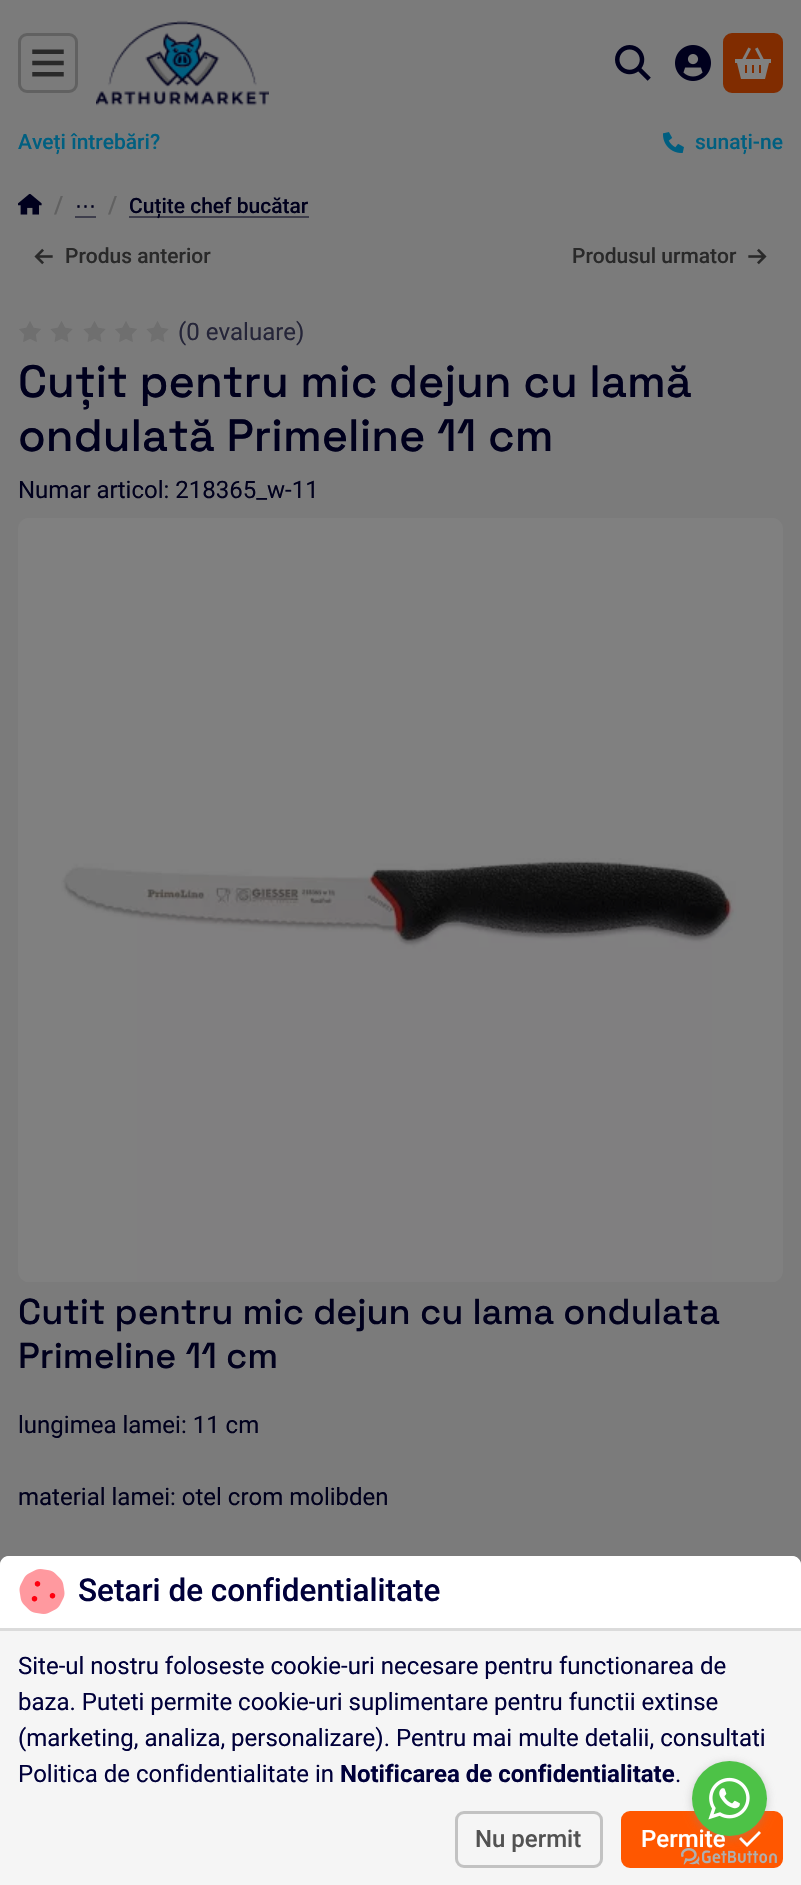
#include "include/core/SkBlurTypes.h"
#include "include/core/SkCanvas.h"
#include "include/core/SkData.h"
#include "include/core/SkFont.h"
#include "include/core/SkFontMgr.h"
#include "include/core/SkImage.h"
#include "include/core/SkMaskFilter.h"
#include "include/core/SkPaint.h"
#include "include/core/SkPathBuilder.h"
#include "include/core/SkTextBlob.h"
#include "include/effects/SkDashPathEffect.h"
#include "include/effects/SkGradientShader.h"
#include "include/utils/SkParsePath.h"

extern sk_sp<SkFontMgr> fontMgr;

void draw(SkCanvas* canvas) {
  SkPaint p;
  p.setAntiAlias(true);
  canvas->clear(SkColorSetRGB(123, 123, 123));
  p.setStyle(SkPaint::kStroke_Style);
  p.setStrokeWidth(3);
  p.setColor(SkColorSetRGB(97, 97, 97));
  canvas->drawRoundRect(SkRect::MakeLTRB(19.5f, 34.5f, 76.5f, 91.5f), 7.5f, 7.5f, p);
  canvas->drawImageRect(SkImages::DeferredFromEncodedData(SkData::MakeFromFileName("images/1.png")), SkRect::MakeLTRB(32, 49, 64, 77), SkSamplingOptions());
  canvas->drawImageRect(SkImages::DeferredFromEncodedData(SkData::MakeFromFileName("images/2.png")), SkRect::MakeLTRB(96, 20, 269, 106), SkSamplingOptions());
  canvas->drawImageRect(SkImages::DeferredFromEncodedData(SkData::MakeFromFileName("images/3.png")), SkRect::MakeLTRB(615, 45, 651, 81), SkSamplingOptions());
  canvas->drawImageRect(SkImages::DeferredFromEncodedData(SkData::MakeFromFileName("images/4.png")), SkRect::MakeLTRB(675, 45, 711, 81), SkSamplingOptions());
  p.setStyle(SkPaint::kFill_Style);
  p.setColor(SkColorSetRGB(128, 44, 0));
  canvas->drawRoundRect(SkRect::MakeLTRB(724.5f, 34.5f, 781.5f, 91.5f), 7.5f, 7.5f, p);
  p.setStyle(SkPaint::kStroke_Style);
  canvas->drawRoundRect(SkRect::MakeLTRB(724.5f, 34.5f, 781.5f, 91.5f), 7.5f, 7.5f, p);
  canvas->drawImageRect(SkImages::DeferredFromEncodedData(SkData::MakeFromFileName("images/5.png")), SkRect::MakeLTRB(735, 47, 771, 79), SkSamplingOptions());
  canvas->drawImageRect(SkImages::DeferredFromEncodedData(SkData::MakeFromFileName("images/6.png")), SkRect::MakeLTRB(663, 132, 684, 153), SkSamplingOptions());
  canvas->drawImageRect(SkImages::DeferredFromEncodedData(SkData::MakeFromFileName("images/7.png")), SkRect::MakeLTRB(18, 194, 42, 215), SkSamplingOptions());
  p.setStyle(SkPaint::kFill_Style);
  p.setColor(SkColorSetRGB(62, 62, 76));
  canvas->drawRect(SkRect::MakeLTRB(75, 216, 96, 218), p);
  canvas->drawRect(SkRect::MakeLTRB(129, 216, 309, 218), p);
  canvas->drawImageRect(SkImages::DeferredFromEncodedData(SkData::MakeFromFileName("images/8.png")), SkRect::MakeLTRB(34, 248, 53, 265), SkSamplingOptions());
  canvas->drawImageRect(SkImages::DeferredFromEncodedData(SkData::MakeFromFileName("images/9.png")), SkRect::MakeLTRB(748, 248, 767, 265), SkSamplingOptions());
  canvas->drawImageRect(SkImages::DeferredFromEncodedData(SkData::MakeFromFileName("images/10.png")), SkRect::MakeLTRB(19, 321, 41, 342), SkSamplingOptions());
  canvas->drawImageRect(SkImages::DeferredFromEncodedData(SkData::MakeFromFileName("images/11.png")), SkRect::MakeLTRB(50, 321, 73, 342), SkSamplingOptions());
  canvas->drawImageRect(SkImages::DeferredFromEncodedData(SkData::MakeFromFileName("images/11.png")), SkRect::MakeLTRB(83, 321, 106, 342), SkSamplingOptions());
  canvas->drawImageRect(SkImages::DeferredFromEncodedData(SkData::MakeFromFileName("images/10.png")), SkRect::MakeLTRB(115, 321, 137, 342), SkSamplingOptions());
  canvas->drawImageRect(SkImages::DeferredFromEncodedData(SkData::MakeFromFileName("images/11.png")), SkRect::MakeLTRB(146, 321, 169, 342), SkSamplingOptions());
  canvas->drawImageRect(SkImages::DeferredFromEncodedData(SkData::MakeFromFileName("images/12.png")), SkRect::MakeLTRB(18, 518, 783, 1282), SkSamplingOptions());
  p.setColor(SkColorSetRGB(245, 245, 245));
  canvas->drawPath(SkPathBuilder().moveTo(9, 1556).lineTo(792, 1556).cubicTo(797, 1556, 801, 1560, 801, 1565).lineTo(801, 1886).lineTo(0, 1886).lineTo(0, 1565).cubicTo(0, 1560, 4, 1556, 9, 1556).close().detach(), p);
  p.setColor(SK_ColorWHITE);
  canvas->drawPath(SkPathBuilder().moveTo(9, 1556).lineTo(792, 1556).cubicTo(797, 1556, 801, 1560, 801, 1565).lineTo(801, 1631).lineTo(0, 1631).lineTo(0, 1565).cubicTo(0, 1560, 4, 1556, 9, 1556).close().detach(), p);
  p.setColor(SkColorSetRGB(219, 219, 219));
  canvas->drawRect(SkRect::MakeLTRB(0, 1628, 801, 1631), p);
  canvas->drawImageRect(SkImages::DeferredFromEncodedData(SkData::MakeFromFileName("images/13.png")), SkRect::MakeLTRB(19, 1569, 65, 1614), SkSamplingOptions());
  p.setStyle(SkPaint::kStroke_Style);
  p.setColor(SkColorSetRGB(194, 194, 194));
  canvas->drawRoundRect(SkRect::MakeLTRB(456.5f, 1812.5f, 601.5f, 1866.5f), 7.5f, 7.5f, p);
  p.setStyle(SkPaint::kFill_Style);
  p.setColor(SkColorSetRGB(255, 87, 0));
  canvas->drawRoundRect(SkRect::MakeLTRB(622.5f, 1812.5f, 781.5f, 1866.5f), 7.5f, 7.5f, p);
  p.setStyle(SkPaint::kStroke_Style);
  canvas->drawRoundRect(SkRect::MakeLTRB(622.5f, 1812.5f, 781.5f, 1866.5f), 7.5f, 7.5f, p);
  p.setStyle(SkPaint::kFill_Style);
  p.setColor(SK_ColorWHITE);
  canvas->drawPath(SkPathBuilder().moveTo(761, 1833).lineTo(747, 1847).lineTo(739, 1839).lineTo(741, 1837).lineTo(747, 1843).lineTo(759, 1831).close().detach(), p);
  canvas->drawImageRect(SkImages::DeferredFromEncodedData(SkData::MakeFromFileName("images/15.png")), SkRect::MakeLTRB(681, 1848, 777, 1865), SkSamplingOptions());
  p.setColor(SkColorSetARGB(102, 136, 136, 136));
  p.setMaskFilter(SkMaskFilter::MakeBlur(kNormal_SkBlurStyle, 5));
  canvas->drawRoundRect(SkRect::MakeLTRB(692, 1763, 767, 1838), 37.5f, 37.5f, p);
  p.setMaskFilter(nullptr);
  SkFont font1(fontMgr->matchFamilyStyle("Roboto", SkFontStyle(500, SkFontStyle::kNormal_Width, SkFontStyle::kUpright_Slant)), 21);
  font1.setSubpixel(true);
  p.setColor(SkColorSetRGB(0, 95, 128));
  canvas->drawString("Aveți întrebări?", 18, 149, font1, p);
  canvas->drawString("sunați-ne", 695, 149, font1, p);
  SkFont font2(fontMgr->matchFamilyStyle("Roboto", SkFontStyle(500, SkFontStyle::kNormal_Width, SkFontStyle::kUpright_Slant)), 24);
  font2.setSubpixel(true);
  p.setColor(SkColorSetRGB(97, 97, 97));
  canvas->drawString("/", 54, 213, font2, p);
  SkFont font3(fontMgr->matchFamilyStyle("DejaVu Sans", SkFontStyle::Normal()), 21);
  font3.setSubpixel(true);
  p.setColor(SkColorSetRGB(0, 0, 29));
  canvas->drawString("⋯", 75, 213, font3, p);
  p.setColor(SkColorSetRGB(97, 97, 97));
  canvas->drawString("/", 108, 213, font2, p);
  p.setColor(SkColorSetRGB(0, 0, 29));
  canvas->drawString("Cuțite chef bucătar", 129, 213, font1, p);
  p.setColor(SkColorSetRGB(41, 41, 41));
  canvas->drawString("Produs anterior", 65, 263, font1, p);
  canvas->drawString("Produsul urmator", 572, 263, font1, p);
  SkFont font4(fontMgr->matchFamilyStyle("Roboto", SkFontStyle::Normal()), 24);
  font4.setSubpixel(true);
  p.setColor(SkColorSetRGB(37, 37, 57));
  canvas->drawString("(0 evaluare)", 178, 340, font4, p);
  SkFont font5(fontMgr->matchFamilyStyle("Space Grotesk", SkFontStyle(500, SkFontStyle::kNormal_Width, SkFontStyle::kUpright_Slant)), 45.25f);
  font5.setSubpixel(true);
  p.setColor(SkColorSetRGB(0, 0, 29));
  canvas->drawString("Cuțit pentru mic dejun cu lamă", 18, 397, font5, p);
  canvas->drawString("ondulată Primeline 11 cm", 18, 451, font5, p);
  canvas->drawString("Numar articol: 218365_w-11", 18, 498, font4, p);
  SkFont font6(fontMgr->matchFamilyStyle("Space Grotesk", SkFontStyle(500, SkFontStyle::kNormal_Width, SkFontStyle::kUpright_Slant)), 36);
  font6.setSubpixel(true);
  canvas->drawString("Cutit pentru mic dejun cu lama ondulata", 18, 1324, font6, p);
  canvas->drawString("Primeline 11 cm", 18, 1368, font6, p);
  canvas->drawString("lungimea lamei: 11 cm", 18, 1433, font4, p);
  canvas->drawString("material lamei: otel crom molibden", 18, 1505, font4, p);
  SkFont font7(fontMgr->matchFamilyStyle("Roboto", SkFontStyle(500, SkFontStyle::kNormal_Width, SkFontStyle::kUpright_Slant)), 31.5f);
  font7.setSubpixel(true);
  p.setColor(SkColorSetRGB(0, 0, 58));
  canvas->drawString("Setari de confidentialitate", 78, 1601, font7, p);
  canvas->drawString("Site-ul nostru foloseste cookie-uri necesare pentru functionarea de", 18, 1674, font4, p);
  canvas->drawString("baza. Puteti permite cookie-uri suplimentare pentru functii extinse", 18, 1710, font4, p);
  canvas->drawString("(marketing, analiza, personalizare). Pentru mai multe detalii, consultati", 18, 1746, font4, p);
  canvas->drawString("Politica de confidentialitate in", 18, 1782, font4, p);
  SkFont font8(fontMgr->matchFamilyStyle("Roboto", SkFontStyle::Bold()), 24);
  font8.setSubpixel(true);
  canvas->drawString("Notificarea de confidentialitate", 340, 1782, font8, p);
  canvas->drawString(".", 675, 1782, font4, p);
  p.setColor(SkColorSetRGB(82, 82, 82));
  canvas->drawString("Nu permit", 475, 1847, font2, p);
  p.setColor(SK_ColorWHITE);
  canvas->drawString("Permite", 641, 1847, font2, p);
  p.setColor(SkColorSetRGB(77, 194, 71));
  canvas->drawCircle(729.5f, 1798.5f, 37.5f, p);
  canvas->drawImageRect(SkImages::DeferredFromEncodedData(SkData::MakeFromFileName("images/14.png")), SkRect::MakeLTRB(708, 1777, 750, 1820), SkSamplingOptions());
}
